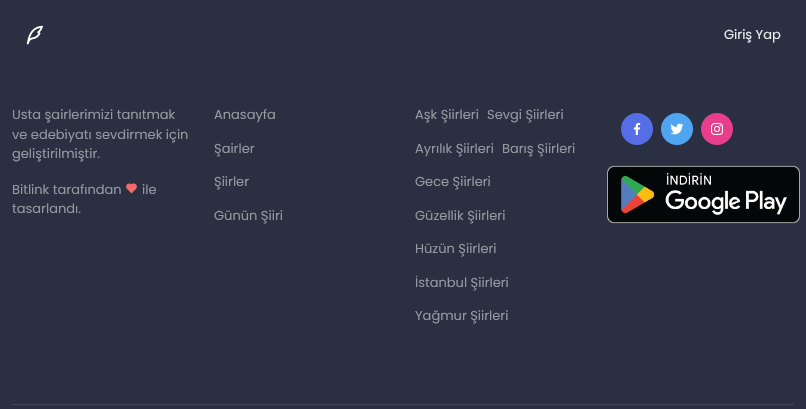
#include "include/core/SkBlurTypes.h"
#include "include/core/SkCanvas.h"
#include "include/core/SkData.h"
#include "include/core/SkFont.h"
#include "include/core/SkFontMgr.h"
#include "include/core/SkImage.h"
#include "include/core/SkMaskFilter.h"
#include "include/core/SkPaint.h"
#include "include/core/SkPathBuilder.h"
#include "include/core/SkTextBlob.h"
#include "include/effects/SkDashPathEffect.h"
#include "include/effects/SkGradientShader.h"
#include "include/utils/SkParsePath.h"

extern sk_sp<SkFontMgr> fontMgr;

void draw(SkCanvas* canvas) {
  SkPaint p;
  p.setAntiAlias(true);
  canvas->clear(SkColorSetRGB(42, 48, 66));
  canvas->drawImageRect(SkImages::DeferredFromEncodedData(SkData::MakeFromFileName("images/1.png")), SkRect::MakeLTRB(26, 25, 44, 45), SkSamplingOptions());
  canvas->drawImageRect(SkImages::DeferredFromEncodedData(SkData::MakeFromFileName("images/2.png")), SkRect::MakeLTRB(126, 183, 137, 194), SkSamplingOptions());
  p.setColor(SkColorSetRGB(85, 110, 230));
  canvas->drawCircle(637, 129, 16, p);
  canvas->drawImageRect(SkImages::DeferredFromEncodedData(SkData::MakeFromFileName("images/3.png")), SkRect::MakeLTRB(633, 123, 641, 135), SkSamplingOptions());
  p.setColor(SkColorSetRGB(80, 165, 241));
  canvas->drawCircle(677, 129, 16, p);
  canvas->drawImageRect(SkImages::DeferredFromEncodedData(SkData::MakeFromFileName("images/4.png")), SkRect::MakeLTRB(670, 123, 684, 135), SkSamplingOptions());
  p.setColor(SkColorSetRGB(232, 62, 140));
  canvas->drawCircle(717, 129, 16, p);
  canvas->drawImageRect(SkImages::DeferredFromEncodedData(SkData::MakeFromFileName("images/5.png")), SkRect::MakeLTRB(711, 123, 723, 135), SkSamplingOptions());
  canvas->drawImageRect(SkImages::DeferredFromEncodedData(SkData::MakeFromFileName("images/6.png")), SkRect::MakeLTRB(607, 165, 800, 224), SkSamplingOptions());
  p.setColor(SkColorSetRGB(63, 69, 85));
  canvas->drawRect(SkRect::MakeLTRB(12, 404, 794, 405), p);
  SkFont font1(fontMgr->matchFamilyStyle("Poppins", SkFontStyle::Normal()), 13);
  font1.setSubpixel(true);
  p.setColor(SkColorSetRGB(233, 236, 239));
  canvas->drawString("Giriş Yap", 724, 39, font1, p);
  p.setColor(SkColorSetRGB(149, 152, 161));
  canvas->drawString("Usta şairlerimizi tanıtmak", 12, 119, font1, p);
  canvas->drawString("ve edebiyatı sevdirmek için", 12, 139, font1, p);
  canvas->drawString("geliştirilmiştir.", 12, 158, font1, p);
  canvas->drawString("Bitlink tarafından", 12, 194, font1, p);
  canvas->drawString("ile", 142, 194, font1, p);
  canvas->drawString("tasarlandı.", 12, 213, font1, p);
  canvas->drawString("Anasayfa", 214, 119, font1, p);
  canvas->drawString("Şairler", 214, 153, font1, p);
  canvas->drawString("Şiirler", 214, 186, font1, p);
  canvas->drawString("Günün Şiiri", 214, 220, font1, p);
  canvas->drawString("Aşk Şiirleri", 415, 119, font1, p);
  canvas->drawString("Sevgi Şiirleri", 487, 119, font1, p);
  canvas->drawString("Ayrılık Şiirleri", 415, 153, font1, p);
  canvas->drawString("Barış Şiirleri", 502, 153, font1, p);
  canvas->drawString("Gece Şiirleri", 415, 186, font1, p);
  canvas->drawString("Güzellik Şiirleri", 415, 220, font1, p);
  canvas->drawString("Hüzün Şiirleri", 415, 253, font1, p);
  canvas->drawString("İstanbul Şiirleri", 415, 287, font1, p);
  canvas->drawString("Yağmur Şiirleri", 415, 320, font1, p);
}
